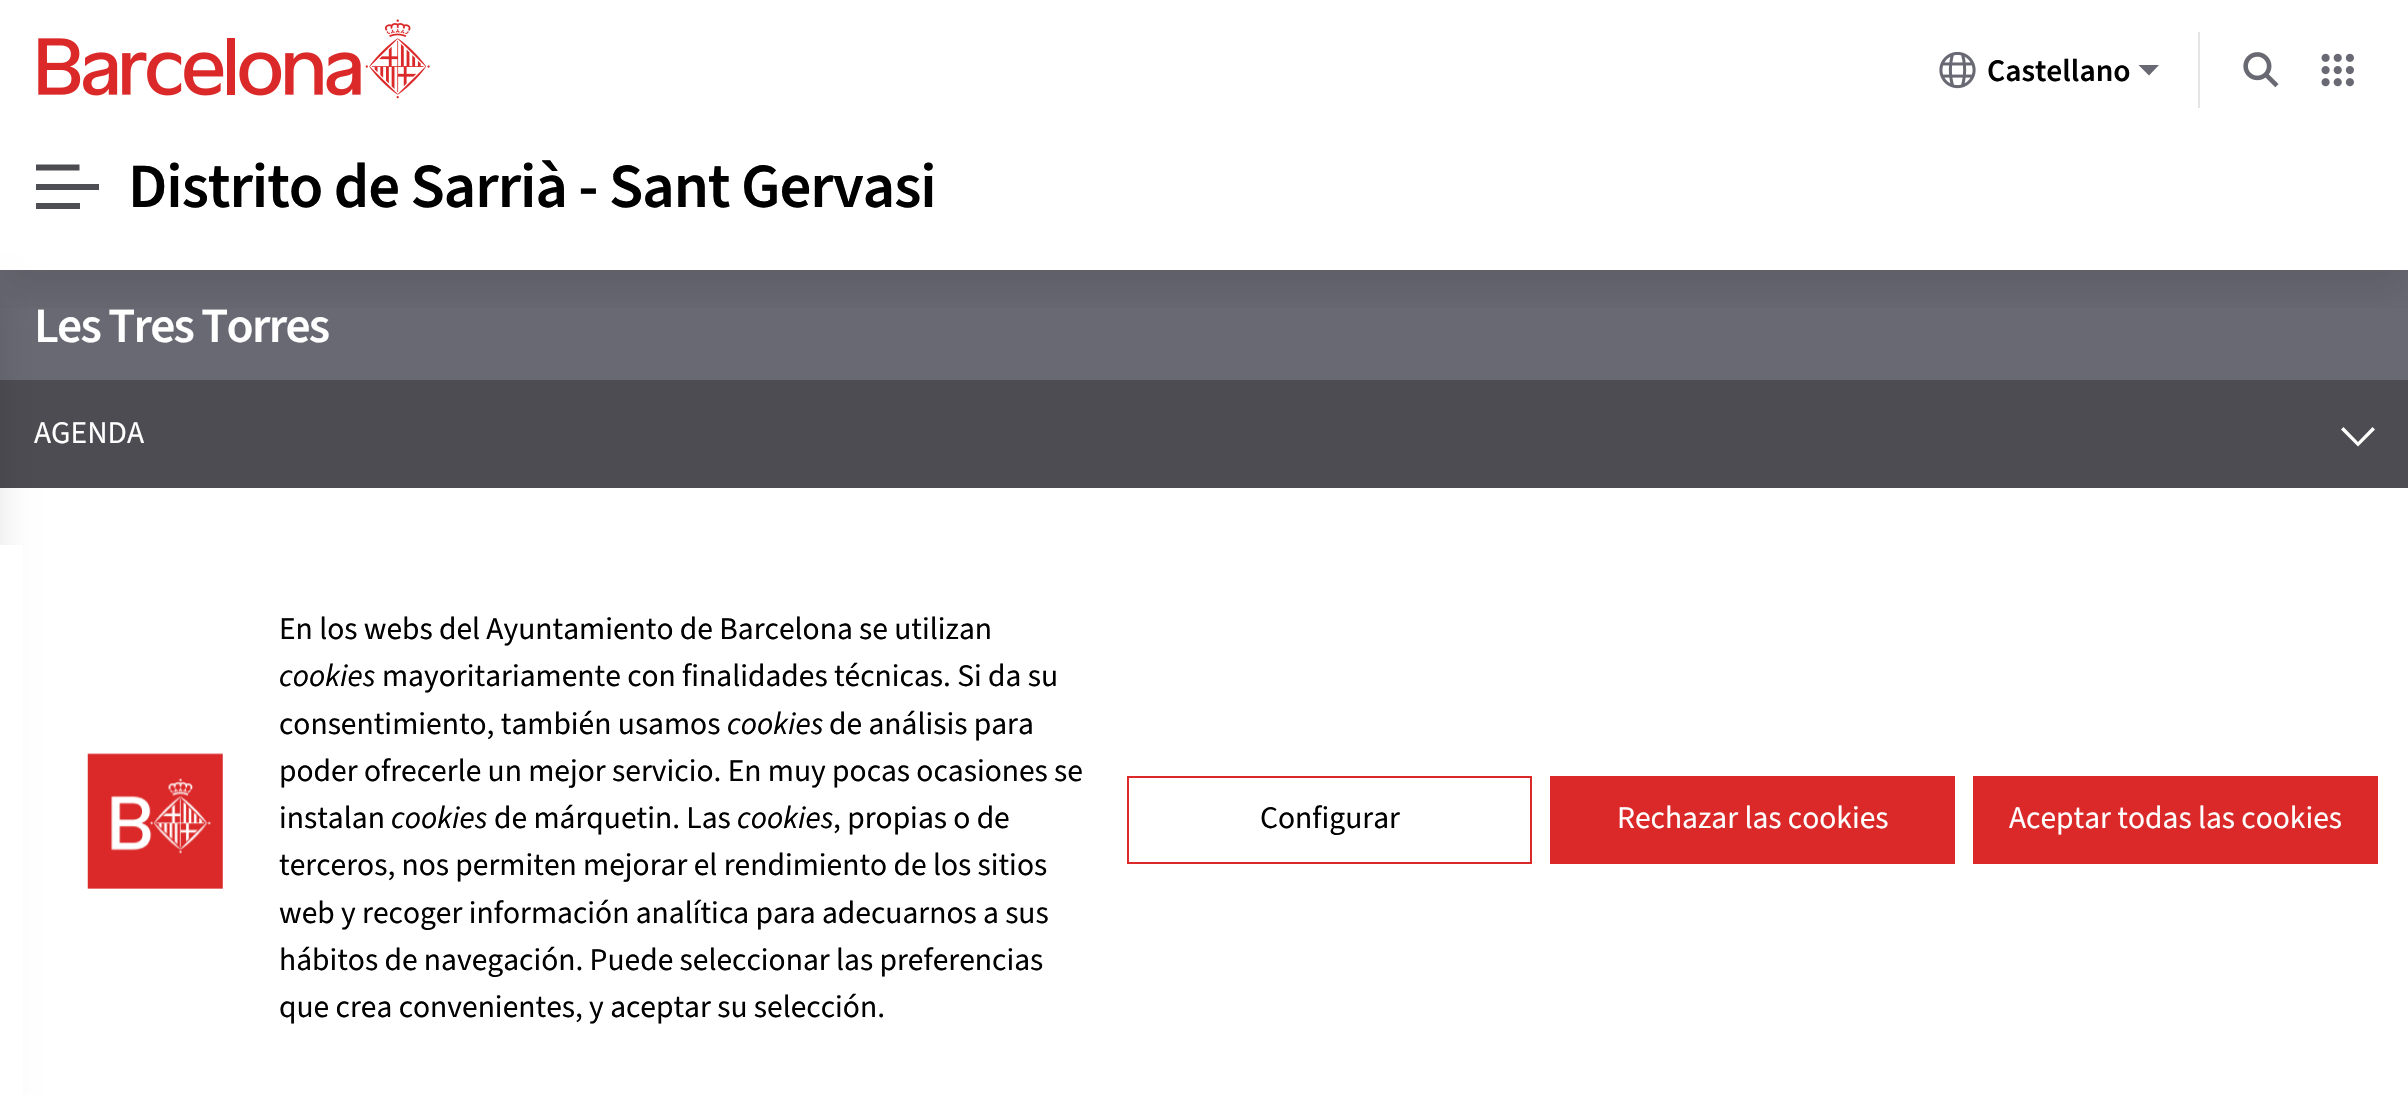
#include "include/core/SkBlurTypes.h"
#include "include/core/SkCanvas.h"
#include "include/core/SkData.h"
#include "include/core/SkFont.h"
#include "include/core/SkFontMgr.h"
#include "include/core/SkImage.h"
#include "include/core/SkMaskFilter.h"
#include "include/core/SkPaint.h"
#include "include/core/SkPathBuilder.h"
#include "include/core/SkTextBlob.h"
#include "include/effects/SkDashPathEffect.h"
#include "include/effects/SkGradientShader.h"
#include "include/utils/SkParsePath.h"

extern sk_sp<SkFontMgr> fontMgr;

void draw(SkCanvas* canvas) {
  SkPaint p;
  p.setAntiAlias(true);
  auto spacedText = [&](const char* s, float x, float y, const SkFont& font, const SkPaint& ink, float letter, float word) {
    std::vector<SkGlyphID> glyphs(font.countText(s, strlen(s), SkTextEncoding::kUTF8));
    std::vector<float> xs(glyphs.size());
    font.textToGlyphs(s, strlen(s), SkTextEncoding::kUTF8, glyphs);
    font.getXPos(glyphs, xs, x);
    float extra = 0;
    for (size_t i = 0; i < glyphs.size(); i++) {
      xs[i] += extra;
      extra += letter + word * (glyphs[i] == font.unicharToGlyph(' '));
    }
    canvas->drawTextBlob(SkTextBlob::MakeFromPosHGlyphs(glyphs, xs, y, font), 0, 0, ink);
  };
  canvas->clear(SK_ColorWHITE);
  canvas->drawImageRect(SkImages::DeferredFromEncodedData(SkData::MakeFromFileName("images/1.png")), SkRect::MakeLTRB(38, 19, 430, 99), SkSamplingOptions());
  p.setColor(SkColorSetRGB(229, 229, 229));
  canvas->drawRect(SkRect::MakeLTRB(2198, 32, 2200, 108), p);
  canvas->drawImageRect(SkImages::DeferredFromEncodedData(SkData::MakeFromFileName("images/2.png")), SkRect::MakeLTRB(1939, 51, 1976, 89), SkSamplingOptions());
  p.setColor(SkColorSetRGB(105, 105, 115));
  canvas->drawPath(SkPathBuilder().moveTo(2138.5f, 65).lineTo(2149, 75.5f).lineTo(2159, 65).close().detach(), p);
  canvas->drawImageRect(SkImages::DeferredFromEncodedData(SkData::MakeFromFileName("images/3.png")), SkRect::MakeLTRB(2243, 52, 2279, 88), SkSamplingOptions());
  canvas->drawImageRect(SkImages::DeferredFromEncodedData(SkData::MakeFromFileName("images/4.png")), SkRect::MakeLTRB(2321, 53, 2354, 87), SkSamplingOptions());
  canvas->drawRect(SkRect::MakeLTRB(0, 270, 2408, 380), p);
  canvas->save();
  canvas->clipRect(SkRect::MakeLTRB(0, 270, 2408, 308));
  p.setColor(SkColorSetARGB(26, 0, 0, 0));
  p.setMaskFilter(SkMaskFilter::MakeBlur(kNormal_SkBlurStyle, 18));
  canvas->drawRect(SkRect::MakeLTRB(0, 144, 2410, 293), p);
  p.setMaskFilter(nullptr);
  canvas->restore();
  p.setColor(SkColorSetRGB(78, 78, 85));
  canvas->drawRect(SkRect::MakeLTRB(36, 184, 99, 190), p);
  p.setStyle(SkPaint::kStroke_Style);
  p.setStrokeWidth(5.9f);
  p.setColor(SkColorSetRGB(75, 75, 82));
  canvas->drawPath(SkPathBuilder().moveTo(36, 167.5f).lineTo(79.5f, 167.5f).detach(), p);
  p.setStyle(SkPaint::kFill_Style);
  p.setColor(SkColorSetRGB(78, 78, 85));
  canvas->drawRect(SkRect::MakeLTRB(36, 203, 80, 209), p);
  p.setColor(SkColorSetRGB(77, 76, 83));
  canvas->drawRect(SkRect::MakeLTRB(0, 380, 2408, 488), p);
  p.setColor(SkColorSetARGB(26, 0, 0, 0));
  p.setMaskFilter(SkMaskFilter::MakeBlur(kNormal_SkBlurStyle, 18));
  canvas->drawRect(SkRect::MakeLTRB(-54, 293, 0, 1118), p);
  p.setMaskFilter(nullptr);
  p.setColor(SK_ColorWHITE);
  canvas->drawPath(SkPathBuilder().moveTo(2375, 429.5f).lineTo(2372.5f, 427).lineTo(2358, 442).lineTo(2343.5f, 427).lineTo(2341, 429.5f).lineTo(2358, 446.5f).close().detach(), p);
  canvas->drawRect(SkRect::MakeLTRB(0, 545, 23, 1095), p);
  canvas->drawImageRect(SkImages::DeferredFromEncodedData(SkData::MakeFromFileName("images/5.png")), SkRect::MakeLTRB(87, 753, 223, 889), SkSamplingOptions());
  p.setStyle(SkPaint::kStroke_Style);
  p.setStrokeWidth(2);
  p.setColor(SkColorSetRGB(219, 40, 40));
  canvas->drawRect(SkRect::MakeLTRB(1128, 777, 1531, 863), p);
  p.setStyle(SkPaint::kFill_Style);
  canvas->drawRect(SkRect::MakeLTRB(1550, 776, 1955, 864), p);
  canvas->drawRect(SkRect::MakeLTRB(1973, 776, 2378, 864), p);
  SkFont font1(fontMgr->matchFamilyStyle("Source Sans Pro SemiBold", SkFontStyle(600, SkFontStyle::kNormal_Width, SkFontStyle::kUpright_Slant)), 31.5f);
  font1.setSubpixel(true);
  p.setColor(SK_ColorBLACK);
  canvas->drawString("Castellano", 1987, 81, font1, p);
  SkFont font2(fontMgr->matchFamilyStyle("Source Sans 3", SkFontStyle(600, SkFontStyle::kNormal_Width, SkFontStyle::kUpright_Slant)), 63);
  font2.setSubpixel(true);
  spacedText("Distrito de Sarrià - Sant Gervasi", 128, 207, font2, p, -1.1f, 0);
  SkFont font3(fontMgr->matchFamilyStyle("Source Sans 3", SkFontStyle(600, SkFontStyle::kNormal_Width, SkFontStyle::kUpright_Slant)), 49.5f);
  font3.setSubpixel(true);
  p.setColor(SK_ColorWHITE);
  spacedText("Les Tres Torres", 34, 342, font3, p, -1.75f, 0);
  SkFont font4(fontMgr->matchFamilyStyle("Source Sans 3", SkFontStyle::Normal()), 31.5f);
  font4.setSubpixel(true);
  canvas->drawString("AGENDA", 34, 443, font4, p);
  p.setColor(SK_ColorBLACK);
  canvas->drawString("En los webs del Ayuntamiento de Barcelona se utilizan", 279, 639, font4, p);
  SkFont font5(fontMgr->matchFamilyStyle("Source Sans 3", SkFontStyle::Italic()), 31.5f);
  font5.setSubpixel(true);
  canvas->drawString("cookies", 279, 686, font5, p);
  canvas->drawString("mayoritariamente con finalidades técnicas. Si da su", 382, 686, font4, p);
  canvas->drawString("consentimiento, también usamos", 279, 734, font4, p);
  canvas->drawString("cookies", 727, 734, font5, p);
  canvas->drawString("de análisis para", 829, 734, font4, p);
  canvas->drawString("poder ofrecerle un mejor servicio. En muy pocas ocasiones se", 279, 781, font4, p);
  canvas->drawString("instalan", 279, 828, font4, p);
  canvas->drawString("cookies", 391, 828, font5, p);
  canvas->drawString("de márquetin. Las", 494, 828, font4, p);
  canvas->drawString("cookies", 737, 828, font5, p);
  canvas->drawString(", propias o de", 833, 828, font4, p);
  canvas->drawString("terceros, nos permiten mejorar el rendimiento de los sitios", 279, 875, font4, p);
  canvas->drawString("web y recoger información analítica para adecuarnos a sus", 279, 923, font4, p);
  canvas->drawString("hábitos de navegación. Puede seleccionar las preferencias", 279, 970, font4, p);
  canvas->drawString("que crea convenientes, y aceptar su selección.", 279, 1017, font4, p);
  canvas->drawString("Configurar", 1260, 828, font4, p);
  p.setColor(SK_ColorWHITE);
  canvas->drawString("Rechazar las cookies", 1617, 828, font4, p);
  canvas->drawString("Aceptar todas las cookies", 2009, 828, font4, p);
}
